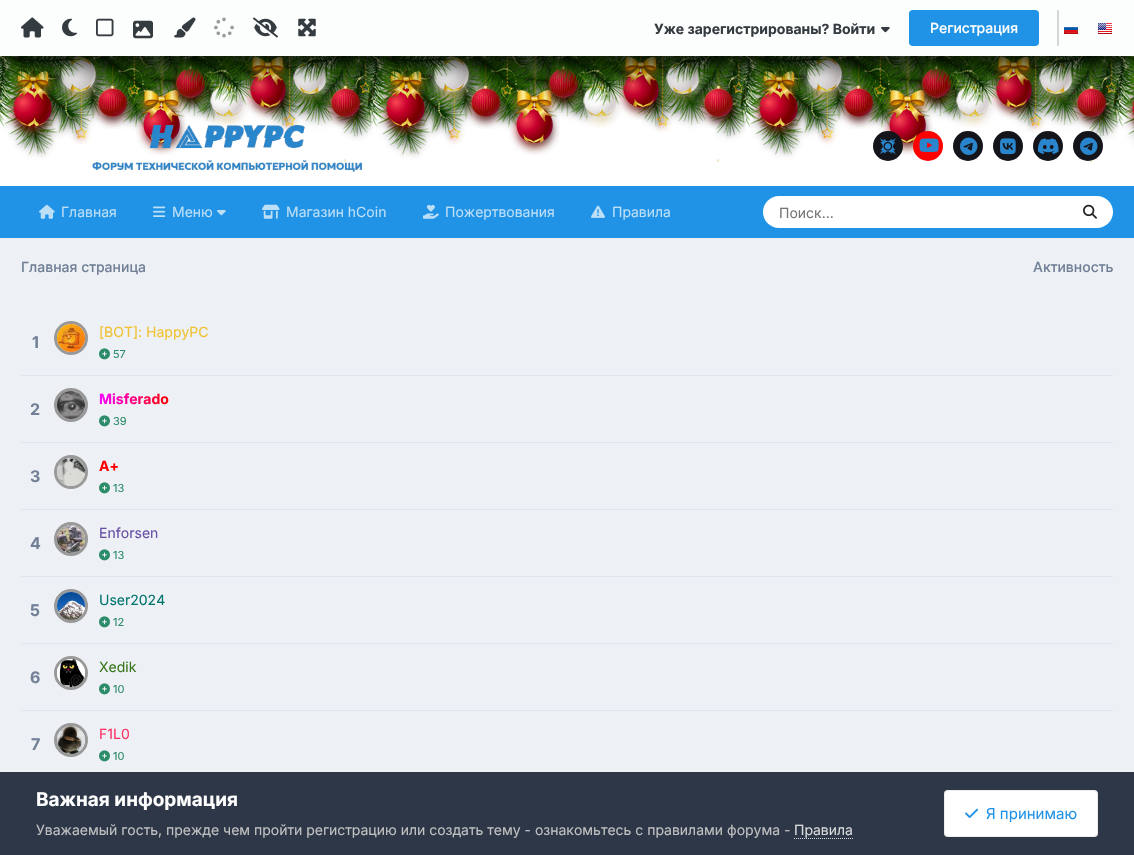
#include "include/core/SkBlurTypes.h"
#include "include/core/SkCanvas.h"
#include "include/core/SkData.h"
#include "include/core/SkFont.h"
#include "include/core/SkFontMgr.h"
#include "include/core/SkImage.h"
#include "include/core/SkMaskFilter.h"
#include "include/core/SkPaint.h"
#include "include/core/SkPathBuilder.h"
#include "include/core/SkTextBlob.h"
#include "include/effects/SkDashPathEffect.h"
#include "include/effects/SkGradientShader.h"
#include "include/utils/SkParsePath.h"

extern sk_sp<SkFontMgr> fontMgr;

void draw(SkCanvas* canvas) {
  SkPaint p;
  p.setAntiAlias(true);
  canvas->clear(SkColorSetRGB(237, 240, 244));
  p.setColor(SK_ColorWHITE);
  canvas->drawRect(SkRect::MakeLTRB(0, 56, 1134, 186), p);
  canvas->drawImageRect(SkImages::DeferredFromEncodedData(SkData::MakeFromFileName("images/12.png")), SkRect::MakeLTRB(0, 56, 1134, 162), SkSamplingOptions());
  canvas->drawImageRect(SkImages::DeferredFromEncodedData(SkData::MakeFromFileName("images/14.png")), SkRect::MakeLTRB(6, 56, 58, 138), SkSamplingOptions());
  canvas->drawImageRect(SkImages::DeferredFromEncodedData(SkData::MakeFromFileName("images/13.png")), SkRect::MakeLTRB(0, 56, 25, 127), SkSamplingOptions());
  canvas->drawImageRect(SkImages::DeferredFromEncodedData(SkData::MakeFromFileName("images/16.png")), SkRect::MakeLTRB(54, 56, 103, 103), SkSamplingOptions());
  canvas->drawImageRect(SkImages::DeferredFromEncodedData(SkData::MakeFromFileName("images/15.png")), SkRect::MakeLTRB(25, 56, 86, 83), SkSamplingOptions());
  canvas->drawImageRect(SkImages::DeferredFromEncodedData(SkData::MakeFromFileName("images/17.png")), SkRect::MakeLTRB(136, 56, 187, 155), SkSamplingOptions());
  canvas->drawImageRect(SkImages::DeferredFromEncodedData(SkData::MakeFromFileName("images/18.png")), SkRect::MakeLTRB(170, 56, 211, 110), SkSamplingOptions());
  canvas->drawImageRect(SkImages::DeferredFromEncodedData(SkData::MakeFromFileName("images/24.png")), SkRect::MakeLTRB(204, 62, 249, 128), SkSamplingOptions());
  canvas->drawImageRect(SkImages::DeferredFromEncodedData(SkData::MakeFromFileName("images/19.png")), SkRect::MakeLTRB(177, 56, 205, 87), SkSamplingOptions());
  canvas->drawImageRect(SkImages::DeferredFromEncodedData(SkData::MakeFromFileName("images/21.png")), SkRect::MakeLTRB(243, 56, 292, 120), SkSamplingOptions());
  canvas->drawImageRect(SkImages::DeferredFromEncodedData(SkData::MakeFromFileName("images/20.png")), SkRect::MakeLTRB(205, 56, 255, 106), SkSamplingOptions());
  canvas->drawImageRect(SkImages::DeferredFromEncodedData(SkData::MakeFromFileName("images/22.png")), SkRect::MakeLTRB(287, 56, 333, 105), SkSamplingOptions());
  canvas->drawImageRect(SkImages::DeferredFromEncodedData(SkData::MakeFromFileName("images/23.png")), SkRect::MakeLTRB(91, 65, 133, 129), SkSamplingOptions());
  canvas->drawImageRect(SkImages::DeferredFromEncodedData(SkData::MakeFromFileName("images/27.png")), SkRect::MakeLTRB(325, 66, 366, 129), SkSamplingOptions());
  canvas->drawImageRect(SkImages::DeferredFromEncodedData(SkData::MakeFromFileName("images/25.png")), SkRect::MakeLTRB(289, 56, 367, 84), SkSamplingOptions());
  canvas->drawImageRect(SkImages::DeferredFromEncodedData(SkData::MakeFromFileName("images/26.png")), SkRect::MakeLTRB(367, 56, 373, 125), SkSamplingOptions());
  canvas->drawImageRect(SkImages::DeferredFromEncodedData(SkData::MakeFromFileName("images/14.png")), SkRect::MakeLTRB(379, 56, 431, 138), SkSamplingOptions());
  canvas->drawImageRect(SkImages::DeferredFromEncodedData(SkData::MakeFromFileName("images/13.png")), SkRect::MakeLTRB(373, 56, 398, 127), SkSamplingOptions());
  canvas->drawImageRect(SkImages::DeferredFromEncodedData(SkData::MakeFromFileName("images/16.png")), SkRect::MakeLTRB(427, 56, 476, 103), SkSamplingOptions());
  canvas->drawImageRect(SkImages::DeferredFromEncodedData(SkData::MakeFromFileName("images/15.png")), SkRect::MakeLTRB(398, 56, 459, 83), SkSamplingOptions());
  canvas->drawImageRect(SkImages::DeferredFromEncodedData(SkData::MakeFromFileName("images/17.png")), SkRect::MakeLTRB(509, 56, 560, 155), SkSamplingOptions());
  canvas->drawImageRect(SkImages::DeferredFromEncodedData(SkData::MakeFromFileName("images/18.png")), SkRect::MakeLTRB(543, 56, 584, 110), SkSamplingOptions());
  canvas->drawImageRect(SkImages::DeferredFromEncodedData(SkData::MakeFromFileName("images/24.png")), SkRect::MakeLTRB(577, 62, 622, 128), SkSamplingOptions());
  canvas->drawImageRect(SkImages::DeferredFromEncodedData(SkData::MakeFromFileName("images/19.png")), SkRect::MakeLTRB(550, 56, 578, 87), SkSamplingOptions());
  canvas->drawImageRect(SkImages::DeferredFromEncodedData(SkData::MakeFromFileName("images/21.png")), SkRect::MakeLTRB(616, 56, 665, 120), SkSamplingOptions());
  canvas->drawImageRect(SkImages::DeferredFromEncodedData(SkData::MakeFromFileName("images/20.png")), SkRect::MakeLTRB(578, 56, 628, 106), SkSamplingOptions());
  canvas->drawImageRect(SkImages::DeferredFromEncodedData(SkData::MakeFromFileName("images/22.png")), SkRect::MakeLTRB(660, 56, 706, 105), SkSamplingOptions());
  canvas->drawImageRect(SkImages::DeferredFromEncodedData(SkData::MakeFromFileName("images/23.png")), SkRect::MakeLTRB(464, 65, 506, 129), SkSamplingOptions());
  canvas->drawImageRect(SkImages::DeferredFromEncodedData(SkData::MakeFromFileName("images/27.png")), SkRect::MakeLTRB(698, 66, 739, 129), SkSamplingOptions());
  canvas->drawImageRect(SkImages::DeferredFromEncodedData(SkData::MakeFromFileName("images/25.png")), SkRect::MakeLTRB(662, 56, 740, 84), SkSamplingOptions());
  canvas->drawImageRect(SkImages::DeferredFromEncodedData(SkData::MakeFromFileName("images/26.png")), SkRect::MakeLTRB(740, 56, 746, 125), SkSamplingOptions());
  canvas->drawImageRect(SkImages::DeferredFromEncodedData(SkData::MakeFromFileName("images/14.png")), SkRect::MakeLTRB(752, 56, 804, 138), SkSamplingOptions());
  canvas->drawImageRect(SkImages::DeferredFromEncodedData(SkData::MakeFromFileName("images/13.png")), SkRect::MakeLTRB(746, 56, 771, 127), SkSamplingOptions());
  canvas->drawImageRect(SkImages::DeferredFromEncodedData(SkData::MakeFromFileName("images/16.png")), SkRect::MakeLTRB(800, 56, 849, 103), SkSamplingOptions());
  canvas->drawImageRect(SkImages::DeferredFromEncodedData(SkData::MakeFromFileName("images/15.png")), SkRect::MakeLTRB(771, 56, 832, 83), SkSamplingOptions());
  canvas->drawImageRect(SkImages::DeferredFromEncodedData(SkData::MakeFromFileName("images/17.png")), SkRect::MakeLTRB(882, 56, 933, 155), SkSamplingOptions());
  canvas->drawImageRect(SkImages::DeferredFromEncodedData(SkData::MakeFromFileName("images/18.png")), SkRect::MakeLTRB(916, 56, 957, 110), SkSamplingOptions());
  canvas->drawImageRect(SkImages::DeferredFromEncodedData(SkData::MakeFromFileName("images/24.png")), SkRect::MakeLTRB(950, 62, 995, 128), SkSamplingOptions());
  canvas->drawImageRect(SkImages::DeferredFromEncodedData(SkData::MakeFromFileName("images/19.png")), SkRect::MakeLTRB(923, 56, 951, 87), SkSamplingOptions());
  canvas->drawImageRect(SkImages::DeferredFromEncodedData(SkData::MakeFromFileName("images/21.png")), SkRect::MakeLTRB(989, 56, 1038, 120), SkSamplingOptions());
  canvas->drawImageRect(SkImages::DeferredFromEncodedData(SkData::MakeFromFileName("images/20.png")), SkRect::MakeLTRB(951, 56, 1001, 106), SkSamplingOptions());
  canvas->drawImageRect(SkImages::DeferredFromEncodedData(SkData::MakeFromFileName("images/22.png")), SkRect::MakeLTRB(1033, 56, 1079, 105), SkSamplingOptions());
  canvas->drawImageRect(SkImages::DeferredFromEncodedData(SkData::MakeFromFileName("images/23.png")), SkRect::MakeLTRB(837, 65, 879, 129), SkSamplingOptions());
  canvas->drawImageRect(SkImages::DeferredFromEncodedData(SkData::MakeFromFileName("images/27.png")), SkRect::MakeLTRB(1071, 66, 1112, 129), SkSamplingOptions());
  canvas->drawImageRect(SkImages::DeferredFromEncodedData(SkData::MakeFromFileName("images/25.png")), SkRect::MakeLTRB(1035, 56, 1113, 84), SkSamplingOptions());
  canvas->drawImageRect(SkImages::DeferredFromEncodedData(SkData::MakeFromFileName("images/26.png")), SkRect::MakeLTRB(1113, 56, 1119, 125), SkSamplingOptions());
  canvas->drawImageRect(SkImages::DeferredFromEncodedData(SkData::MakeFromFileName("images/29.png")), SkRect::MakeLTRB(1125, 73, 1134, 132), SkSamplingOptions());
  canvas->drawImageRect(SkImages::DeferredFromEncodedData(SkData::MakeFromFileName("images/28.png")), SkRect::MakeLTRB(1119, 56, 1134, 127), SkSamplingOptions());
  p.setColor(SkColorSetARGB(135, 0, 0, 0));
  p.setMaskFilter(SkMaskFilter::MakeBlur(kNormal_SkBlurStyle, 7.5f));
  canvas->drawRect(SkRect::MakeLTRB(0, 4, 1134, 60), p);
  p.setMaskFilter(nullptr);
  p.setColor(SkColorSetARGB(191, 0, 0, 0));
  p.setMaskFilter(SkMaskFilter::MakeBlur(kNormal_SkBlurStyle, 15));
  canvas->drawRect(SkRect::MakeLTRB(0, -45, 1134, 64), p);
  p.setMaskFilter(nullptr);
  p.setColor(SkColorSetRGB(252, 253, 253));
  canvas->drawRect(SkRect::MakeLTRB(0, 0, 1134, 56), p);
  canvas->drawImageRect(SkImages::DeferredFromEncodedData(SkData::MakeFromFileName("images/1.png")), SkRect::MakeLTRB(21, 17, 44, 38), SkSamplingOptions());
  canvas->drawImageRect(SkImages::DeferredFromEncodedData(SkData::MakeFromFileName("images/2.png")), SkRect::MakeLTRB(62, 18, 77, 37), SkSamplingOptions());
  canvas->drawImageRect(SkImages::DeferredFromEncodedData(SkData::MakeFromFileName("images/3.png")), SkRect::MakeLTRB(96, 18, 114, 37), SkSamplingOptions());
  canvas->drawImageRect(SkImages::DeferredFromEncodedData(SkData::MakeFromFileName("images/4.png")), SkRect::MakeLTRB(133, 20, 153, 39), SkSamplingOptions());
  canvas->drawImageRect(SkImages::DeferredFromEncodedData(SkData::MakeFromFileName("images/5.png")), SkRect::MakeLTRB(174, 17, 196, 38), SkSamplingOptions());
  canvas->drawImageRect(SkImages::DeferredFromEncodedData(SkData::MakeFromFileName("images/6.png")), SkRect::MakeLTRB(214, 17, 234, 38), SkSamplingOptions());
  canvas->drawImageRect(SkImages::DeferredFromEncodedData(SkData::MakeFromFileName("images/7.png")), SkRect::MakeLTRB(253, 17, 278, 38), SkSamplingOptions());
  canvas->drawImageRect(SkImages::DeferredFromEncodedData(SkData::MakeFromFileName("images/8.png")), SkRect::MakeLTRB(298, 18, 316, 37), SkSamplingOptions());
  canvas->drawImageRect(SkImages::DeferredFromEncodedData(SkData::MakeFromFileName("images/9.png")), SkRect::MakeLTRB(881, 27, 890, 33), SkSamplingOptions());
  p.setColor(SkColorSetRGB(33, 147, 230));
  canvas->drawRoundRect(SkRect::MakeLTRB(909, 10, 1039, 46), 4, 4, p);
  p.setColor(SkColorSetRGB(212, 214, 215));
  canvas->drawRect(SkRect::MakeLTRB(1057, 10, 1059, 46), p);
  canvas->drawImageRect(SkImages::DeferredFromEncodedData(SkData::MakeFromFileName("images/10.png")), SkRect::MakeLTRB(1064, 26, 1078, 34), SkSamplingOptions());
  canvas->drawImageRect(SkImages::DeferredFromEncodedData(SkData::MakeFromFileName("images/11.png")), SkRect::MakeLTRB(1098, 23, 1112, 34), SkSamplingOptions());
  canvas->drawImageRect(SkImages::DeferredFromEncodedData(SkData::MakeFromFileName("images/30.png")), SkRect::MakeLTRB(92, 125, 363, 172), SkSamplingOptions());
  p.setColor(SkColorSetRGB(20, 21, 27));
  canvas->drawCircle(888, 146, 15, p);
  canvas->drawImageRect(SkImages::DeferredFromEncodedData(SkData::MakeFromFileName("images/31.png")), SkRect::MakeLTRB(880, 138, 896, 154), SkSamplingOptions());
  p.setColor(SkColorSetRGB(255, 0, 0));
  canvas->drawCircle(928, 146, 15, p);
  canvas->drawImageRect(SkImages::DeferredFromEncodedData(SkData::MakeFromFileName("images/32.png")), SkRect::MakeLTRB(919, 138, 939, 152), SkSamplingOptions());
  p.setColor(SkColorSetRGB(20, 21, 27));
  canvas->drawCircle(968, 146, 15, p);
  canvas->drawImageRect(SkImages::DeferredFromEncodedData(SkData::MakeFromFileName("images/33.png")), SkRect::MakeLTRB(960, 137, 978, 155), SkSamplingOptions());
  canvas->drawCircle(1008, 146, 15, p);
  canvas->drawImageRect(SkImages::DeferredFromEncodedData(SkData::MakeFromFileName("images/34.png")), SkRect::MakeLTRB(1000, 138, 1016, 155), SkSamplingOptions());
  canvas->drawCircle(1048, 146, 15, p);
  canvas->drawImageRect(SkImages::DeferredFromEncodedData(SkData::MakeFromFileName("images/35.png")), SkRect::MakeLTRB(1037, 138, 1059, 155), SkSamplingOptions());
  canvas->drawCircle(1088, 146, 15, p);
  canvas->drawImageRect(SkImages::DeferredFromEncodedData(SkData::MakeFromFileName("images/33.png")), SkRect::MakeLTRB(1080, 137, 1098, 155), SkSamplingOptions());
  p.setColor(SkColorSetRGB(33, 147, 230));
  canvas->drawRect(SkRect::MakeLTRB(0, 186, 1134, 238), p);
  canvas->drawImageRect(SkImages::DeferredFromEncodedData(SkData::MakeFromFileName("images/36.png")), SkRect::MakeLTRB(39, 204, 55, 219), SkSamplingOptions());
  canvas->drawImageRect(SkImages::DeferredFromEncodedData(SkData::MakeFromFileName("images/37.png")), SkRect::MakeLTRB(153, 206, 166, 217), SkSamplingOptions());
  canvas->drawImageRect(SkImages::DeferredFromEncodedData(SkData::MakeFromFileName("images/38.png")), SkRect::MakeLTRB(217, 210, 226, 216), SkSamplingOptions());
  canvas->drawImageRect(SkImages::DeferredFromEncodedData(SkData::MakeFromFileName("images/39.png")), SkRect::MakeLTRB(262, 204, 280, 219), SkSamplingOptions());
  canvas->drawImageRect(SkImages::DeferredFromEncodedData(SkData::MakeFromFileName("images/40.png")), SkRect::MakeLTRB(423, 205, 439, 219), SkSamplingOptions());
  canvas->drawImageRect(SkImages::DeferredFromEncodedData(SkData::MakeFromFileName("images/41.png")), SkRect::MakeLTRB(591, 205, 605, 218), SkSamplingOptions());
  p.setColor(SK_ColorWHITE);
  canvas->drawRoundRect(SkRect::MakeLTRB(763, 196, 1113, 228), 16, 16, p);
  canvas->drawImageRect(SkImages::DeferredFromEncodedData(SkData::MakeFromFileName("images/42.png")), SkRect::MakeLTRB(1083, 204, 1097, 219), SkSamplingOptions());
  p.setColor(SkColorSetRGB(225, 229, 235));
  canvas->drawRect(SkRect::MakeLTRB(21, 375, 1113, 376), p);
  p.setStyle(SkPaint::kStroke_Style);
  p.setStrokeWidth(3);
  p.setColor(SkColorSetRGB(153, 153, 153));
  canvas->drawCircle(71, 338, 15.5f, p);
  canvas->drawImageRect(SkImages::DeferredFromEncodedData(SkData::MakeFromFileName("images/43.png")), SkRect::MakeLTRB(57, 324, 85, 352), SkSamplingOptions());
  canvas->drawImageRect(SkImages::DeferredFromEncodedData(SkData::MakeFromFileName("images/44.png")), SkRect::MakeLTRB(99, 348, 110, 360), SkSamplingOptions());
  p.setStyle(SkPaint::kFill_Style);
  p.setColor(SkColorSetRGB(225, 229, 235));
  canvas->drawRect(SkRect::MakeLTRB(21, 442, 1113, 443), p);
  p.setStyle(SkPaint::kStroke_Style);
  p.setColor(SkColorSetRGB(153, 153, 153));
  canvas->drawCircle(71, 405, 15.5f, p);
  canvas->drawImageRect(SkImages::DeferredFromEncodedData(SkData::MakeFromFileName("images/45.png")), SkRect::MakeLTRB(57, 391, 85, 419), SkSamplingOptions());
  canvas->drawImageRect(SkImages::DeferredFromEncodedData(SkData::MakeFromFileName("images/44.png")), SkRect::MakeLTRB(99, 415, 110, 427), SkSamplingOptions());
  p.setStyle(SkPaint::kFill_Style);
  p.setColor(SkColorSetRGB(225, 229, 235));
  canvas->drawRect(SkRect::MakeLTRB(21, 509, 1113, 510), p);
  p.setStyle(SkPaint::kStroke_Style);
  p.setColor(SkColorSetRGB(153, 153, 153));
  canvas->drawCircle(71, 472, 15.5f, p);
  canvas->drawImageRect(SkImages::DeferredFromEncodedData(SkData::MakeFromFileName("images/46.png")), SkRect::MakeLTRB(57, 458, 85, 486), SkSamplingOptions());
  canvas->drawImageRect(SkImages::DeferredFromEncodedData(SkData::MakeFromFileName("images/44.png")), SkRect::MakeLTRB(99, 482, 110, 494), SkSamplingOptions());
  p.setStyle(SkPaint::kFill_Style);
  p.setColor(SkColorSetRGB(225, 229, 235));
  canvas->drawRect(SkRect::MakeLTRB(21, 576, 1113, 577), p);
  p.setStyle(SkPaint::kStroke_Style);
  p.setColor(SkColorSetRGB(153, 153, 153));
  canvas->drawCircle(71, 539, 15.5f, p);
  canvas->drawImageRect(SkImages::DeferredFromEncodedData(SkData::MakeFromFileName("images/47.png")), SkRect::MakeLTRB(57, 525, 85, 553), SkSamplingOptions());
  canvas->drawImageRect(SkImages::DeferredFromEncodedData(SkData::MakeFromFileName("images/44.png")), SkRect::MakeLTRB(99, 549, 110, 561), SkSamplingOptions());
  p.setStyle(SkPaint::kFill_Style);
  p.setColor(SkColorSetRGB(225, 229, 235));
  canvas->drawRect(SkRect::MakeLTRB(21, 643, 1113, 644), p);
  p.setStyle(SkPaint::kStroke_Style);
  p.setColor(SkColorSetRGB(153, 153, 153));
  canvas->drawCircle(71, 606, 15.5f, p);
  canvas->drawImageRect(SkImages::DeferredFromEncodedData(SkData::MakeFromFileName("images/48.png")), SkRect::MakeLTRB(57, 592, 85, 620), SkSamplingOptions());
  canvas->drawImageRect(SkImages::DeferredFromEncodedData(SkData::MakeFromFileName("images/44.png")), SkRect::MakeLTRB(99, 616, 110, 628), SkSamplingOptions());
  p.setStyle(SkPaint::kFill_Style);
  p.setColor(SkColorSetRGB(225, 229, 235));
  canvas->drawRect(SkRect::MakeLTRB(21, 710, 1113, 711), p);
  p.setStyle(SkPaint::kStroke_Style);
  p.setColor(SkColorSetRGB(153, 153, 153));
  canvas->drawCircle(71, 673, 15.5f, p);
  canvas->drawImageRect(SkImages::DeferredFromEncodedData(SkData::MakeFromFileName("images/49.png")), SkRect::MakeLTRB(57, 659, 85, 687), SkSamplingOptions());
  canvas->drawImageRect(SkImages::DeferredFromEncodedData(SkData::MakeFromFileName("images/44.png")), SkRect::MakeLTRB(99, 683, 110, 695), SkSamplingOptions());
  canvas->drawCircle(71, 740, 15.5f, p);
  canvas->drawImageRect(SkImages::DeferredFromEncodedData(SkData::MakeFromFileName("images/50.png")), SkRect::MakeLTRB(57, 726, 85, 754), SkSamplingOptions());
  canvas->drawImageRect(SkImages::DeferredFromEncodedData(SkData::MakeFromFileName("images/44.png")), SkRect::MakeLTRB(99, 750, 110, 762), SkSamplingOptions());
  p.setStyle(SkPaint::kFill_Style);
  p.setColor(SkColorSetRGB(45, 55, 72));
  canvas->drawRect(SkRect::MakeLTRB(0, 772, 1134, 855), p);
  p.setStyle(SkPaint::kStroke_Style);
  p.setStrokeWidth(1);
  p.setColor(SkColorSetRGB(218, 218, 218));
  p.setPathEffect(SkDashPathEffect::Make({{1, 1}}, 0));
  canvas->drawPath(SkPathBuilder().moveTo(794, 838.5f).lineTo(853, 838.5f).detach(), p);
  p.setPathEffect(nullptr);
  p.setStyle(SkPaint::kFill_Style);
  p.setColor(SK_ColorWHITE);
  canvas->drawRoundRect(SkRect::MakeLTRB(944, 790, 1098, 837), 4, 4, p);
  p.setStyle(SkPaint::kStroke_Style);
  p.setColor(SkColorSetARGB(18, 0, 0, 0));
  canvas->drawRoundRect(SkRect::MakeLTRB(944.5f, 790.5f, 1097.5f, 836.5f), 3.5f, 3.5f, p);
  canvas->drawImageRect(SkImages::DeferredFromEncodedData(SkData::MakeFromFileName("images/51.png")), SkRect::MakeLTRB(965, 808, 979, 818), SkSamplingOptions());
  SkFont font1(fontMgr->matchFamilyStyle("Inter", SkFontStyle::Bold()), 14);
  font1.setSubpixel(true);
  p.setStyle(SkPaint::kFill_Style);
  p.setColor(SkColorSetRGB(53, 60, 65));
  canvas->drawString("Уже зарегистрированы? Войти", 654, 34, font1, p);
  SkFont font2(fontMgr->matchFamilyStyle("Inter", SkFontStyle(500, SkFontStyle::kNormal_Width, SkFontStyle::kUpright_Slant)), 14);
  font2.setSubpixel(true);
  p.setColor(SK_ColorWHITE);
  canvas->drawString("Регистрация", 930, 33, font2, p);
  SkFont font3(fontMgr->matchFamilyStyle("Inter", SkFontStyle::Normal()), 14);
  font3.setSubpixel(true);
  p.setColor(SkColorSetRGB(188, 223, 248));
  canvas->drawString("Главная", 61, 217, font3, p);
  canvas->drawString("Меню", 172, 217, font3, p);
  canvas->drawString("Магазин hCoin", 286, 217, font3, p);
  canvas->drawString("Пожертвования", 445, 217, font3, p);
  canvas->drawString("Правила", 612, 217, font3, p);
  p.setColor(SkColorSetRGB(117, 117, 117));
  canvas->drawString("Поиск...", 779, 218, font3, p);
  p.setColor(SkColorSetRGB(113, 128, 150));
  canvas->drawString("Главная страница", 21, 272, font2, p);
  canvas->drawString("Активность", 1033, 272, font2, p);
  SkFont font4(fontMgr->matchFamilyStyle("Inter", SkFontStyle::Bold()), 16);
  font4.setSubpixel(true);
  canvas->drawString("1", 32, 348, font4, p);
  p.setColor(SkColorSetRGB(241, 194, 50));
  canvas->drawString("[BOT]: HappyPC", 99, 337, font3, p);
  SkFont font5(fontMgr->matchFamilyStyle("Inter", SkFontStyle::Normal()), 11);
  font5.setSubpixel(true);
  p.setColor(SkColorSetRGB(44, 140, 105));
  canvas->drawString("57", 113, 358, font5, p);
  p.setColor(SkColorSetRGB(113, 128, 150));
  canvas->drawString("2", 30, 415, font4, p);
  {
    const SkColor colors[] = {SkColorSetRGB(252, 0, 255), SkColorSetRGB(255, 0, 0)};
    const float stops[] = {0, 1};
    const SkPoint ends[] = {{99, 399}, {169, 399}};
    p.setShader(SkGradientShader::MakeLinear(ends, colors, stops, 2, SkTileMode::kClamp));
    p.setAlpha(255);
  }
  canvas->drawString("Misferado", 99, 404, font1, p);
  p.setShader(nullptr);
  p.setColor(SkColorSetRGB(44, 140, 105));
  canvas->drawString("39", 113, 425, font5, p);
  p.setColor(SkColorSetRGB(113, 128, 150));
  canvas->drawString("3", 30, 482, font4, p);
  p.setColor(SkColorSetRGB(255, 0, 0));
  canvas->drawString("A+", 99, 471, font1, p);
  p.setColor(SkColorSetRGB(44, 140, 105));
  canvas->drawString("13", 113, 492, font5, p);
  p.setColor(SkColorSetRGB(113, 128, 150));
  canvas->drawString("4", 30, 549, font4, p);
  p.setColor(SkColorSetRGB(103, 78, 167));
  canvas->drawString("Enforsen", 99, 538, font3, p);
  p.setColor(SkColorSetRGB(44, 140, 105));
  canvas->drawString("13", 113, 559, font5, p);
  p.setColor(SkColorSetRGB(113, 128, 150));
  canvas->drawString("5", 30, 616, font4, p);
  p.setColor(SkColorSetRGB(0, 116, 109));
  canvas->drawString("User2024", 99, 605, font3, p);
  p.setColor(SkColorSetRGB(44, 140, 105));
  canvas->drawString("12", 113, 626, font5, p);
  p.setColor(SkColorSetRGB(113, 128, 150));
  canvas->drawString("6", 30, 683, font4, p);
  p.setColor(SkColorSetRGB(56, 118, 29));
  canvas->drawString("Xedik", 99, 672, font3, p);
  p.setColor(SkColorSetRGB(44, 140, 105));
  canvas->drawString("10", 113, 693, font5, p);
  p.setColor(SkColorSetRGB(113, 128, 150));
  canvas->drawString("7", 31, 750, font4, p);
  p.setColor(SkColorSetRGB(255, 51, 102));
  canvas->drawString("F1L0", 99, 739, font3, p);
  p.setColor(SkColorSetRGB(44, 140, 105));
  canvas->drawString("10", 113, 760, font5, p);
  SkFont font6(fontMgr->matchFamilyStyle("Inter", SkFontStyle::Bold()), 19);
  font6.setSubpixel(true);
  p.setColor(SK_ColorWHITE);
  canvas->drawString("Важная информация", 36, 806, font6, p);
  p.setColor(SkColorSetRGB(192, 192, 192));
  canvas->drawString("Уважаемый гость, прежде чем пройти регистрацию или создать тему - ознакомьтесь с правилами форума -", 36, 835, font3, p);
  p.setColor(SkColorSetRGB(218, 218, 218));
  canvas->drawString("Правила", 794, 835, font3, p);
  SkFont font7(fontMgr->matchFamilyStyle("Inter", SkFontStyle::Normal()), 15);
  font7.setSubpixel(true);
  p.setColor(SkColorSetRGB(33, 147, 230));
  canvas->drawString("Я принимаю", 986, 819, font7, p);
}
